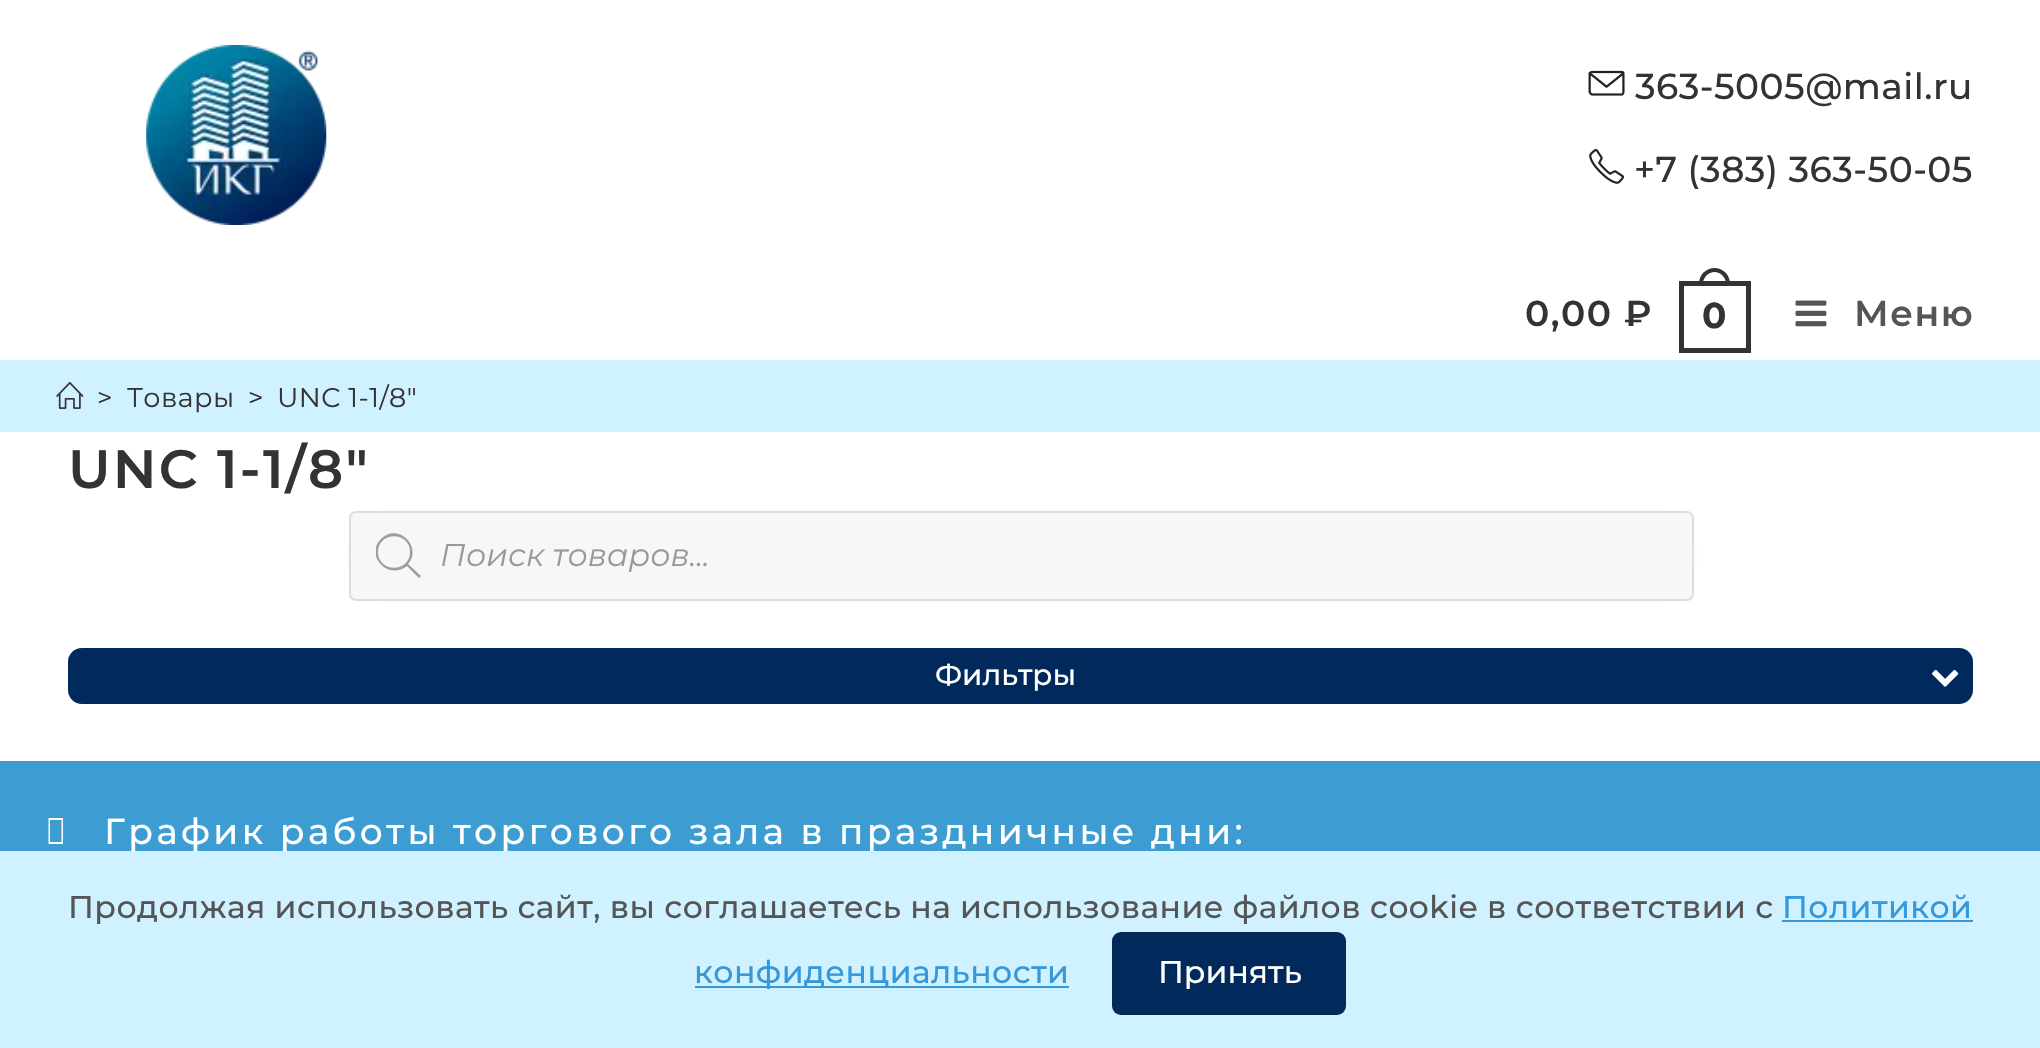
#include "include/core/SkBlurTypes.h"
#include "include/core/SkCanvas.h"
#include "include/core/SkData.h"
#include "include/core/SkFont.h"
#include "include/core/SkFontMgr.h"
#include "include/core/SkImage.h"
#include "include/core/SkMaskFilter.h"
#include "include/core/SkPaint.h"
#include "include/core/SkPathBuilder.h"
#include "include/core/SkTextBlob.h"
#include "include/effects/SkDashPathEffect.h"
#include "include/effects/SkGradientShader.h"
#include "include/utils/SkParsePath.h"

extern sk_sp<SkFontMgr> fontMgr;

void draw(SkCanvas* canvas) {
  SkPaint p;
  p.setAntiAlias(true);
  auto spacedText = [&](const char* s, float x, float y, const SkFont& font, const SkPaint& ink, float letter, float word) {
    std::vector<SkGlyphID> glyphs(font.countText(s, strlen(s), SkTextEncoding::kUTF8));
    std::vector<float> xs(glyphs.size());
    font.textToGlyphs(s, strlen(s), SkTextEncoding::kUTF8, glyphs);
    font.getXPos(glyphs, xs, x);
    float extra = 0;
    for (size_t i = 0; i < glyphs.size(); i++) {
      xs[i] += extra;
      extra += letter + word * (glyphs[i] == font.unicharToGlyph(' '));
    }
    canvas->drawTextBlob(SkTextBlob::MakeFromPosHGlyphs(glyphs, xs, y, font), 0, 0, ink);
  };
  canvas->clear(SK_ColorWHITE);
  SkFont font1(fontMgr->matchFamilyStyle("Montserrat", SkFontStyle(600, SkFontStyle::kNormal_Width, SkFontStyle::kUpright_Slant)), 54);
  font1.setSubpixel(true);
  p.setColor(SkColorSetRGB(51, 51, 51));
  spacedText("UNC 1-1/8\"", 68, 488, font1, p, 2.25f, 0);
  canvas->save();
  canvas->clipRect(SkRect::MakeLTRB(0, 360, 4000, 432));
  p.setStyle(SkPaint::kStroke_Style);
  p.setStrokeWidth(2041);
  p.setColor(SkColorSetRGB(208, 241, 255));
  canvas->drawRect(SkRect::MakeLTRB(-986.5f, -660.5f, 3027.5f, 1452.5f), p);
  canvas->restore();
  p.setStrokeWidth(5);
  p.setColor(SkColorSetRGB(51, 51, 51));
  canvas->drawRect(SkRect::MakeLTRB(1681.5f, 283.5f, 1748.5f, 350.5f), p);
  p.setStyle(SkPaint::kFill_Style);
  canvas->drawPath(SkPathBuilder(SkPathFillType::kEvenOdd).moveTo(1714.5f, 268).cubicTo(1723, 268, 1730, 275, 1730, 283.5f).lineTo(1730, 286).lineTo(1699, 286).lineTo(1699, 283.5f).cubicTo(1699, 275, 1706, 268, 1714.5f, 268).close().moveTo(1714.5f, 272).cubicTo(1720.5f, 272, 1726, 277.5f, 1726, 283.5f).lineTo(1726, 286).lineTo(1703, 286).lineTo(1703, 283.5f).cubicTo(1703, 277.5f, 1708.5f, 272, 1714.5f, 272).close().detach(), p);
  SkFont font2(fontMgr->matchFamilyStyle("Montserrat", SkFontStyle::Bold()), 36);
  font2.setSubpixel(true);
  spacedText("0", 1702, 328, font2, p, 1.5f, 0);
  SkFont font3(fontMgr->matchFamilyStyle("Montserrat", SkFontStyle(600, SkFontStyle::kNormal_Width, SkFontStyle::kUpright_Slant)), 36);
  font3.setSubpixel(true);
  p.setColor(SkColorSetRGB(85, 85, 85));
  spacedText("Меню", 1854, 326, font3, p, 1.5f, 0);
  canvas->drawImageRect(SkImages::DeferredFromEncodedData(SkData::MakeFromFileName("images/4.png")), SkRect::MakeLTRB(1795, 300, 1827, 327), SkSamplingOptions());
  p.setColor(SkColorSetRGB(51, 51, 51));
  spacedText("0,00 ₽", 1525, 326, font3, p, 1.5f, 0);
  SkFont font4(fontMgr->matchFamilyStyle("Montserrat", SkFontStyle(500, SkFontStyle::kNormal_Width, SkFontStyle::kUpright_Slant)), 36);
  font4.setSubpixel(true);
  spacedText("+7 (383) 363-50-05", 1634, 182, font4, p, 0.45f, 0);
  canvas->drawImageRect(SkImages::DeferredFromEncodedData(SkData::MakeFromFileName("images/3.png")), SkRect::MakeLTRB(1589, 149, 1624, 184), SkSamplingOptions());
  spacedText("363-5005@mail.ru", 1635, 99, font4, p, 0.45f, 0);
  canvas->drawImageRect(SkImages::DeferredFromEncodedData(SkData::MakeFromFileName("images/2.png")), SkRect::MakeLTRB(1588, 70, 1625, 96), SkSamplingOptions());
  canvas->drawImageRect(SkImages::DeferredFromEncodedData(SkData::MakeFromFileName("images/1.png")), SkRect::MakeLTRB(146, 45, 327, 225), SkSamplingOptions());
  p.setColor(SkColorSetRGB(208, 241, 255));
  canvas->drawRect(SkRect::MakeLTRB(34, 360, 2007, 432), p);
  SkFont font5(fontMgr->matchFamilyStyle("Montserrat", SkFontStyle::Normal()), 27);
  font5.setSubpixel(true);
  p.setColor(SkColorSetRGB(51, 51, 51));
  spacedText("UNC 1-1/8\"", 277, 407, font5, p, 0.45f, 0);
  spacedText(">", 248, 407, font5, p, 0.45f, 0);
  spacedText("Товары", 127, 407, font5, p, 0.45f, 0);
  spacedText(">", 97, 407, font5, p, 0.45f, 0);
  canvas->drawImageRect(SkImages::DeferredFromEncodedData(SkData::MakeFromFileName("images/5.png")), SkRect::MakeLTRB(56, 382, 84, 409), SkSamplingOptions());
  p.setStyle(SkPaint::kStroke_Style);
  p.setStrokeWidth(2);
  p.setColor(SkColorSetRGB(251, 251, 251));
  canvas->drawRoundRect(SkRect::MakeLTRB(348, 510, 1696, 602), 46, 46, p);
  p.setStyle(SkPaint::kFill_Style);
  p.setColor(SkColorSetRGB(247, 247, 247));
  canvas->drawRoundRect(SkRect::MakeLTRB(350, 512, 1693, 600), 6, 6, p);
  p.setStyle(SkPaint::kStroke_Style);
  p.setColor(SkColorSetRGB(221, 221, 221));
  canvas->drawRoundRect(SkRect::MakeLTRB(350, 512, 1693, 600), 6, 6, p);
  canvas->save();
  canvas->clipRect(SkRect::MakeLTRB(376, 533, 421, 578));
  p.setStyle(SkPaint::kFill_Style);
  p.setColor(SkColorSetRGB(158, 158, 158));
  canvas->drawPath(SkPathBuilder().moveTo(421, 576).lineTo(408, 564).cubicTo(423, 547, 398, 522, 381, 539).cubicTo(364, 556, 389, 581, 407, 566).lineTo(419, 578).close().moveTo(378, 552).cubicTo(378, 531, 410, 531, 410, 552).cubicTo(410, 573, 378, 573, 378, 552).close().detach(), p);
  canvas->restore();
  SkFont font6(fontMgr->matchFamilyStyle("Montserrat", SkFontStyle::Italic()), 31.5f);
  font6.setSubpixel(true);
  p.setColor(SkColorSetRGB(153, 153, 153));
  canvas->drawString("Поиск товаров...", 440, 566, font6, p);
  p.setColor(SkColorSetRGB(1, 41, 91));
  canvas->drawRoundRect(SkRect::MakeLTRB(68, 648, 1973, 704), 14, 14, p);
  SkFont font7(fontMgr->matchFamilyStyle("Montserrat", SkFontStyle(500, SkFontStyle::kNormal_Width, SkFontStyle::kUpright_Slant)), 29.25f);
  font7.setSubpixel(true);
  p.setColor(SK_ColorWHITE);
  canvas->drawString("Фильтры", 935, 685, font7, p);
  canvas->drawImageRect(SkImages::DeferredFromEncodedData(SkData::MakeFromFileName("images/6.png")), SkRect::MakeLTRB(1932, 669, 1959, 687), SkSamplingOptions());
  p.setColor(SkColorSetRGB(61, 156, 210));
  canvas->drawRect(SkRect::MakeLTRB(0, 761, 2040, 851), p);
  p.setColor(SK_ColorWHITE);
  canvas->drawPath(SkPathBuilder().moveTo(48.5f, 844).lineTo(48.5f, 818).lineTo(63, 818).lineTo(63, 844).close().moveTo(50, 842).lineTo(61.5f, 842).lineTo(61.5f, 820).lineTo(50, 820).close().detach(), p);
  spacedText("График работы торгового зала в праздничные дни:", 104, 844, font4, p, 3.4f, 0);
  p.setColor(SkColorSetRGB(208, 241, 255));
  canvas->drawRect(SkRect::MakeLTRB(0, 851, 2040, 1048), p);
  SkFont font8(fontMgr->matchFamilyStyle("Montserrat", SkFontStyle(500, SkFontStyle::kNormal_Width, SkFontStyle::kUpright_Slant)), 31.5f);
  font8.setSubpixel(true);
  p.setColor(SkColorSetRGB(85, 85, 85));
  spacedText("Продолжая использовать сайт, вы соглашаетесь на использование файлов cookie в соответствии с", 68, 918, font8, p, 0.45f, 0);
  p.setColor(SkColorSetRGB(52, 152, 219));
  spacedText("Политикой", 1782, 918, font8, p, 0.45f, 0);
  canvas->drawRect(SkRect::MakeLTRB(1782, 920, 1973, 922), p);
  canvas->drawRect(SkRect::MakeLTRB(695, 986, 1069, 988), p);
  spacedText("конфиденциальности", 694, 983, font8, p, 0.45f, 0);
  p.setColor(SkColorSetRGB(1, 41, 91));
  canvas->drawRoundRect(SkRect::MakeLTRB(1112, 932, 1346, 1015), 9, 9, p);
  p.setColor(SK_ColorWHITE);
  canvas->drawString("Принять", 1158, 983, font8, p);
}
